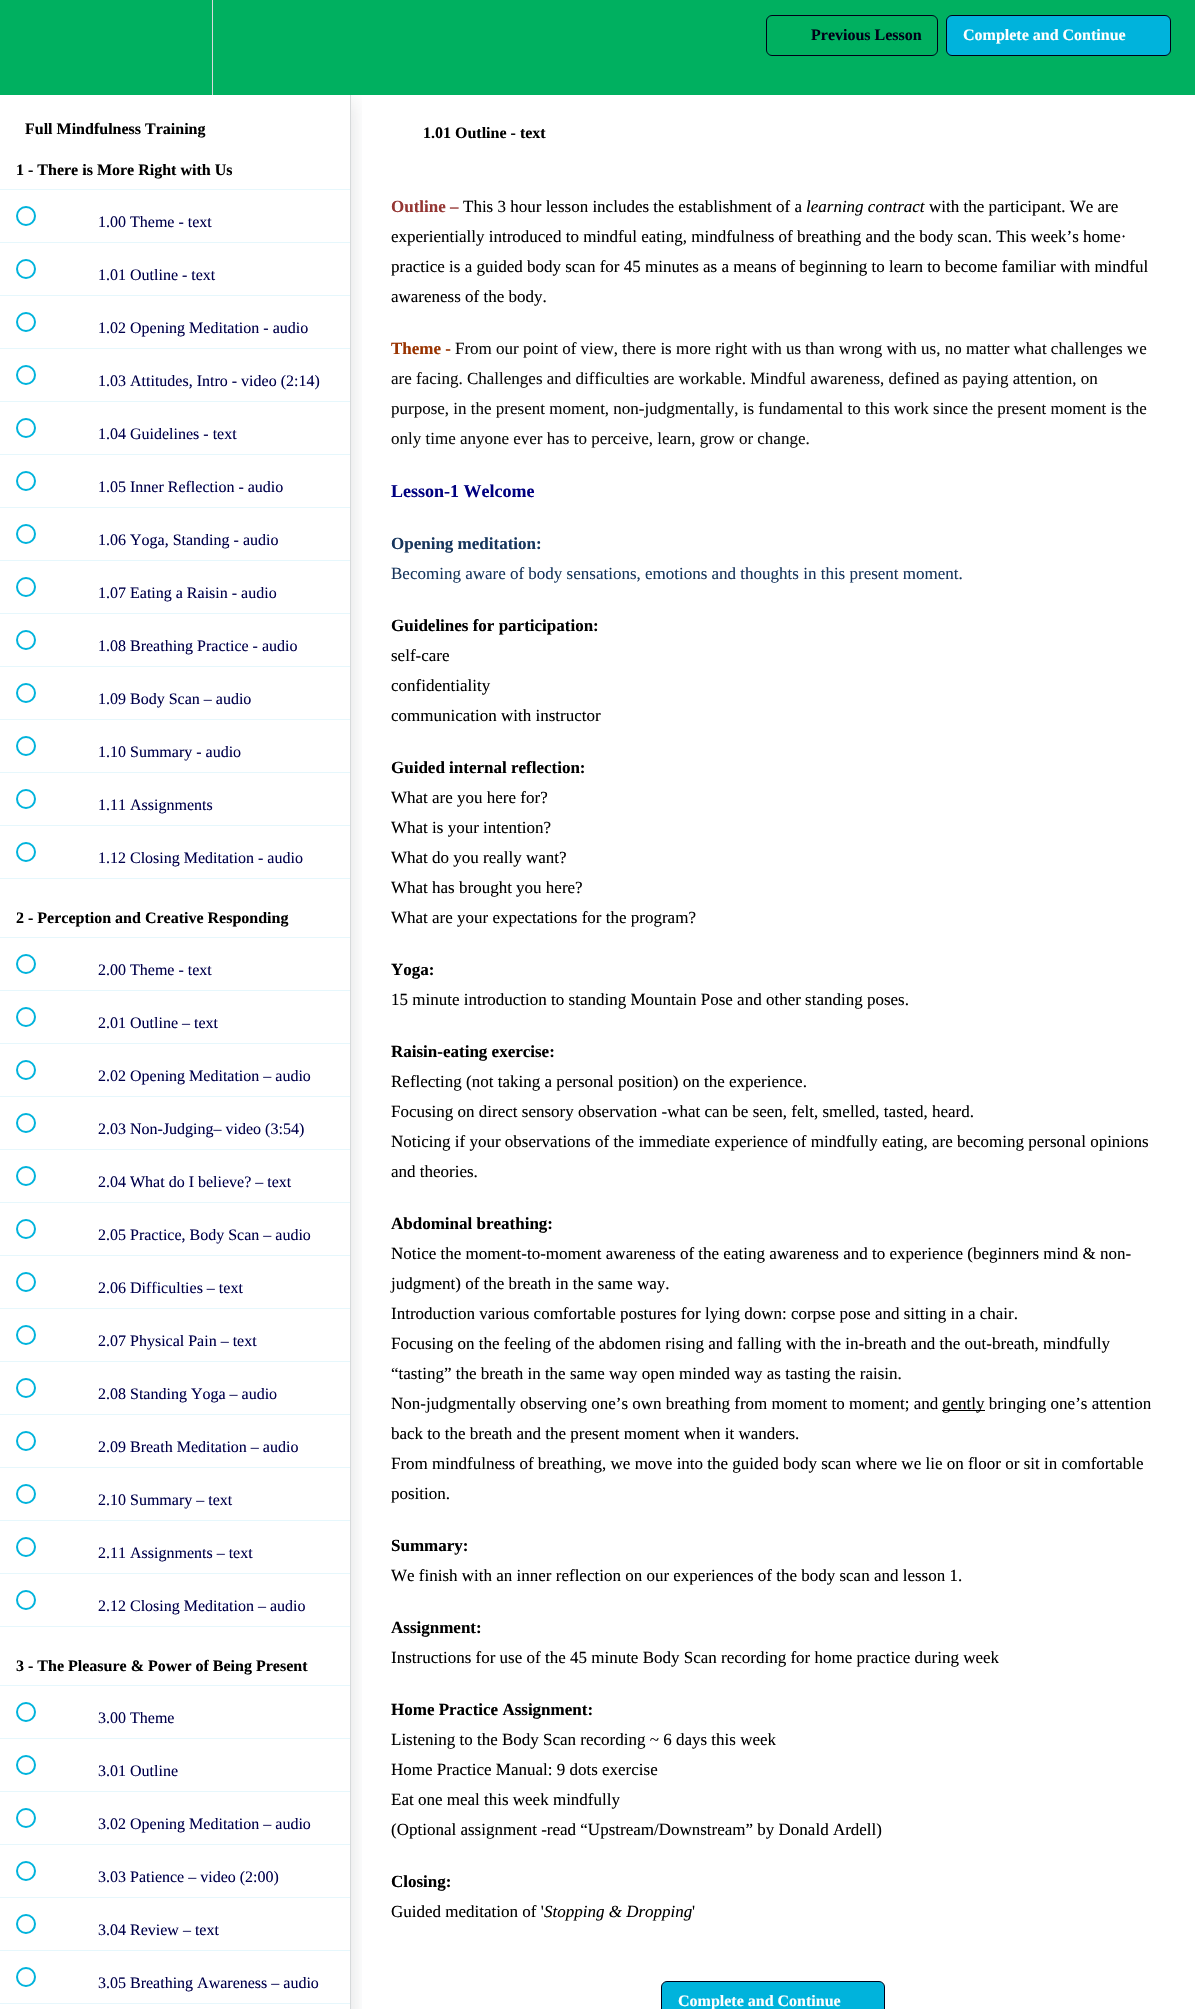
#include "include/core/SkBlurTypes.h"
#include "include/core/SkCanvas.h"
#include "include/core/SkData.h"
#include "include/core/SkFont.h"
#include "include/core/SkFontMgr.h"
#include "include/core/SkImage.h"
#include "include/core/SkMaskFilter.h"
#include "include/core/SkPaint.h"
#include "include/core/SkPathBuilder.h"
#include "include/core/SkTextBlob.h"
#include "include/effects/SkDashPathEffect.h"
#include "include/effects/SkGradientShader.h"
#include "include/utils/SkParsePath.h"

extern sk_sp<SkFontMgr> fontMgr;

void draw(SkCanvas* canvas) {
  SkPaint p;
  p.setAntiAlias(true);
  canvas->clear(SK_ColorWHITE);
  canvas->save();
  canvas->clipRect(SkRect::MakeLTRB(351, 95, 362, 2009));
  p.setColor(SkColorSetARGB(38, 32, 39, 45));
  p.setMaskFilter(SkMaskFilter::MakeBlur(kNormal_SkBlurStyle, 10));
  canvas->drawRect(SkRect::MakeLTRB(0, 101, 351, 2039), p);
  p.setMaskFilter(nullptr);
  canvas->restore();
  p.setColor(SkColorSetRGB(0, 176, 96));
  canvas->drawRect(SkRect::MakeLTRB(0, 0, 1195, 95), p);
  p.setColor(SkColorSetRGB(215, 218, 219));
  canvas->drawRect(SkRect::MakeLTRB(212, 0, 213, 95), p);
  p.setStyle(SkPaint::kStroke_Style);
  p.setStrokeWidth(1);
  p.setColor(SkColorSetRGB(0, 0, 24));
  canvas->drawRoundRect(SkRect::MakeLTRB(766.5f, 15.5f, 937.5f, 55.5f), 5.5f, 5.5f, p);
  p.setStyle(SkPaint::kFill_Style);
  p.setColor(SkColorSetRGB(0, 179, 220));
  canvas->drawRoundRect(SkRect::MakeLTRB(946.5f, 15.5f, 1170.5f, 55.5f), 5.5f, 5.5f, p);
  p.setStyle(SkPaint::kStroke_Style);
  p.setColor(SkColorSetRGB(0, 0, 24));
  canvas->drawRoundRect(SkRect::MakeLTRB(946.5f, 15.5f, 1170.5f, 55.5f), 5.5f, 5.5f, p);
  p.setStyle(SkPaint::kFill_Style);
  p.setColor(SkColorSetRGB(215, 218, 219));
  canvas->drawRect(SkRect::MakeLTRB(350, 95, 351, 2009), p);
  p.setColor(SkColorSetRGB(230, 247, 252));
  canvas->drawRect(SkRect::MakeLTRB(0, 189, 350, 190), p);
  canvas->drawRect(SkRect::MakeLTRB(0, 242, 350, 243), p);
  p.setStyle(SkPaint::kStroke_Style);
  p.setStrokeWidth(2);
  p.setColor(SkColorSetRGB(0, 179, 220));
  canvas->drawCircle(26, 216, 9, p);
  p.setStyle(SkPaint::kFill_Style);
  p.setColor(SkColorSetRGB(230, 247, 252));
  canvas->drawRect(SkRect::MakeLTRB(0, 295, 350, 296), p);
  p.setStyle(SkPaint::kStroke_Style);
  p.setColor(SkColorSetRGB(0, 179, 220));
  canvas->drawCircle(26, 269, 9, p);
  p.setStyle(SkPaint::kFill_Style);
  p.setColor(SkColorSetRGB(230, 247, 252));
  canvas->drawRect(SkRect::MakeLTRB(0, 348, 350, 349), p);
  p.setStyle(SkPaint::kStroke_Style);
  p.setColor(SkColorSetRGB(0, 179, 220));
  canvas->drawCircle(26, 322, 9, p);
  p.setStyle(SkPaint::kFill_Style);
  p.setColor(SkColorSetRGB(230, 247, 252));
  canvas->drawRect(SkRect::MakeLTRB(0, 401, 350, 402), p);
  p.setStyle(SkPaint::kStroke_Style);
  p.setColor(SkColorSetRGB(0, 179, 220));
  canvas->drawCircle(26, 375, 9, p);
  p.setStyle(SkPaint::kFill_Style);
  p.setColor(SkColorSetRGB(230, 247, 252));
  canvas->drawRect(SkRect::MakeLTRB(0, 454, 350, 455), p);
  p.setStyle(SkPaint::kStroke_Style);
  p.setColor(SkColorSetRGB(0, 179, 220));
  canvas->drawCircle(26, 428, 9, p);
  p.setStyle(SkPaint::kFill_Style);
  p.setColor(SkColorSetRGB(230, 247, 252));
  canvas->drawRect(SkRect::MakeLTRB(0, 507, 350, 508), p);
  p.setStyle(SkPaint::kStroke_Style);
  p.setColor(SkColorSetRGB(0, 179, 220));
  canvas->drawCircle(26, 481, 9, p);
  p.setStyle(SkPaint::kFill_Style);
  p.setColor(SkColorSetRGB(230, 247, 252));
  canvas->drawRect(SkRect::MakeLTRB(0, 560, 350, 561), p);
  p.setStyle(SkPaint::kStroke_Style);
  p.setColor(SkColorSetRGB(0, 179, 220));
  canvas->drawCircle(26, 534, 9, p);
  p.setStyle(SkPaint::kFill_Style);
  p.setColor(SkColorSetRGB(230, 247, 252));
  canvas->drawRect(SkRect::MakeLTRB(0, 613, 350, 614), p);
  p.setStyle(SkPaint::kStroke_Style);
  p.setColor(SkColorSetRGB(0, 179, 220));
  canvas->drawCircle(26, 587, 9, p);
  p.setStyle(SkPaint::kFill_Style);
  p.setColor(SkColorSetRGB(230, 247, 252));
  canvas->drawRect(SkRect::MakeLTRB(0, 666, 350, 667), p);
  p.setStyle(SkPaint::kStroke_Style);
  p.setColor(SkColorSetRGB(0, 179, 220));
  canvas->drawCircle(26, 640, 9, p);
  p.setStyle(SkPaint::kFill_Style);
  p.setColor(SkColorSetRGB(230, 247, 252));
  canvas->drawRect(SkRect::MakeLTRB(0, 719, 350, 720), p);
  p.setStyle(SkPaint::kStroke_Style);
  p.setColor(SkColorSetRGB(0, 179, 220));
  canvas->drawCircle(26, 693, 9, p);
  p.setStyle(SkPaint::kFill_Style);
  p.setColor(SkColorSetRGB(230, 247, 252));
  canvas->drawRect(SkRect::MakeLTRB(0, 772, 350, 773), p);
  p.setStyle(SkPaint::kStroke_Style);
  p.setColor(SkColorSetRGB(0, 179, 220));
  canvas->drawCircle(26, 746, 9, p);
  p.setStyle(SkPaint::kFill_Style);
  p.setColor(SkColorSetRGB(230, 247, 252));
  canvas->drawRect(SkRect::MakeLTRB(0, 825, 350, 826), p);
  p.setStyle(SkPaint::kStroke_Style);
  p.setColor(SkColorSetRGB(0, 179, 220));
  canvas->drawCircle(26, 799, 9, p);
  p.setStyle(SkPaint::kFill_Style);
  p.setColor(SkColorSetRGB(230, 247, 252));
  canvas->drawRect(SkRect::MakeLTRB(0, 878, 350, 879), p);
  p.setStyle(SkPaint::kStroke_Style);
  p.setColor(SkColorSetRGB(0, 179, 220));
  canvas->drawCircle(26, 852, 9, p);
  p.setStyle(SkPaint::kFill_Style);
  p.setColor(SkColorSetRGB(230, 247, 252));
  canvas->drawRect(SkRect::MakeLTRB(0, 937, 350, 938), p);
  canvas->drawRect(SkRect::MakeLTRB(0, 990, 350, 991), p);
  p.setStyle(SkPaint::kStroke_Style);
  p.setColor(SkColorSetRGB(0, 179, 220));
  canvas->drawCircle(26, 964, 9, p);
  p.setStyle(SkPaint::kFill_Style);
  p.setColor(SkColorSetRGB(230, 247, 252));
  canvas->drawRect(SkRect::MakeLTRB(0, 1043, 350, 1044), p);
  p.setStyle(SkPaint::kStroke_Style);
  p.setColor(SkColorSetRGB(0, 179, 220));
  canvas->drawCircle(26, 1017, 9, p);
  p.setStyle(SkPaint::kFill_Style);
  p.setColor(SkColorSetRGB(230, 247, 252));
  canvas->drawRect(SkRect::MakeLTRB(0, 1096, 350, 1097), p);
  p.setStyle(SkPaint::kStroke_Style);
  p.setColor(SkColorSetRGB(0, 179, 220));
  canvas->drawCircle(26, 1070, 9, p);
  p.setStyle(SkPaint::kFill_Style);
  p.setColor(SkColorSetRGB(230, 247, 252));
  canvas->drawRect(SkRect::MakeLTRB(0, 1149, 350, 1150), p);
  p.setStyle(SkPaint::kStroke_Style);
  p.setColor(SkColorSetRGB(0, 179, 220));
  canvas->drawCircle(26, 1123, 9, p);
  p.setStyle(SkPaint::kFill_Style);
  p.setColor(SkColorSetRGB(230, 247, 252));
  canvas->drawRect(SkRect::MakeLTRB(0, 1202, 350, 1203), p);
  p.setStyle(SkPaint::kStroke_Style);
  p.setColor(SkColorSetRGB(0, 179, 220));
  canvas->drawCircle(26, 1176, 9, p);
  p.setStyle(SkPaint::kFill_Style);
  p.setColor(SkColorSetRGB(230, 247, 252));
  canvas->drawRect(SkRect::MakeLTRB(0, 1255, 350, 1256), p);
  p.setStyle(SkPaint::kStroke_Style);
  p.setColor(SkColorSetRGB(0, 179, 220));
  canvas->drawCircle(26, 1229, 9, p);
  p.setStyle(SkPaint::kFill_Style);
  p.setColor(SkColorSetRGB(230, 247, 252));
  canvas->drawRect(SkRect::MakeLTRB(0, 1308, 350, 1309), p);
  p.setStyle(SkPaint::kStroke_Style);
  p.setColor(SkColorSetRGB(0, 179, 220));
  canvas->drawCircle(26, 1282, 9, p);
  p.setStyle(SkPaint::kFill_Style);
  p.setColor(SkColorSetRGB(230, 247, 252));
  canvas->drawRect(SkRect::MakeLTRB(0, 1361, 350, 1362), p);
  p.setStyle(SkPaint::kStroke_Style);
  p.setColor(SkColorSetRGB(0, 179, 220));
  canvas->drawCircle(26, 1335, 9, p);
  p.setStyle(SkPaint::kFill_Style);
  p.setColor(SkColorSetRGB(230, 247, 252));
  canvas->drawRect(SkRect::MakeLTRB(0, 1414, 350, 1415), p);
  p.setStyle(SkPaint::kStroke_Style);
  p.setColor(SkColorSetRGB(0, 179, 220));
  canvas->drawCircle(26, 1388, 9, p);
  p.setStyle(SkPaint::kFill_Style);
  p.setColor(SkColorSetRGB(230, 247, 252));
  canvas->drawRect(SkRect::MakeLTRB(0, 1467, 350, 1468), p);
  p.setStyle(SkPaint::kStroke_Style);
  p.setColor(SkColorSetRGB(0, 179, 220));
  canvas->drawCircle(26, 1441, 9, p);
  p.setStyle(SkPaint::kFill_Style);
  p.setColor(SkColorSetRGB(230, 247, 252));
  canvas->drawRect(SkRect::MakeLTRB(0, 1520, 350, 1521), p);
  p.setStyle(SkPaint::kStroke_Style);
  p.setColor(SkColorSetRGB(0, 179, 220));
  canvas->drawCircle(26, 1494, 9, p);
  p.setStyle(SkPaint::kFill_Style);
  p.setColor(SkColorSetRGB(230, 247, 252));
  canvas->drawRect(SkRect::MakeLTRB(0, 1573, 350, 1574), p);
  p.setStyle(SkPaint::kStroke_Style);
  p.setColor(SkColorSetRGB(0, 179, 220));
  canvas->drawCircle(26, 1547, 9, p);
  p.setStyle(SkPaint::kFill_Style);
  p.setColor(SkColorSetRGB(230, 247, 252));
  canvas->drawRect(SkRect::MakeLTRB(0, 1626, 350, 1627), p);
  p.setStyle(SkPaint::kStroke_Style);
  p.setColor(SkColorSetRGB(0, 179, 220));
  canvas->drawCircle(26, 1600, 9, p);
  p.setStyle(SkPaint::kFill_Style);
  p.setColor(SkColorSetRGB(230, 247, 252));
  canvas->drawRect(SkRect::MakeLTRB(0, 1685, 350, 1686), p);
  canvas->drawRect(SkRect::MakeLTRB(0, 1738, 350, 1739), p);
  p.setStyle(SkPaint::kStroke_Style);
  p.setColor(SkColorSetRGB(0, 179, 220));
  canvas->drawCircle(26, 1712, 9, p);
  p.setStyle(SkPaint::kFill_Style);
  p.setColor(SkColorSetRGB(230, 247, 252));
  canvas->drawRect(SkRect::MakeLTRB(0, 1791, 350, 1792), p);
  p.setStyle(SkPaint::kStroke_Style);
  p.setColor(SkColorSetRGB(0, 179, 220));
  canvas->drawCircle(26, 1765, 9, p);
  p.setStyle(SkPaint::kFill_Style);
  p.setColor(SkColorSetRGB(230, 247, 252));
  canvas->drawRect(SkRect::MakeLTRB(0, 1844, 350, 1845), p);
  p.setStyle(SkPaint::kStroke_Style);
  p.setColor(SkColorSetRGB(0, 179, 220));
  canvas->drawCircle(26, 1818, 9, p);
  p.setStyle(SkPaint::kFill_Style);
  p.setColor(SkColorSetRGB(230, 247, 252));
  canvas->drawRect(SkRect::MakeLTRB(0, 1897, 350, 1898), p);
  p.setStyle(SkPaint::kStroke_Style);
  p.setColor(SkColorSetRGB(0, 179, 220));
  canvas->drawCircle(26, 1871, 9, p);
  p.setStyle(SkPaint::kFill_Style);
  p.setColor(SkColorSetRGB(230, 247, 252));
  canvas->drawRect(SkRect::MakeLTRB(0, 1950, 350, 1951), p);
  p.setStyle(SkPaint::kStroke_Style);
  p.setColor(SkColorSetRGB(0, 179, 220));
  canvas->drawCircle(26, 1924, 9, p);
  p.setStyle(SkPaint::kFill_Style);
  p.setColor(SkColorSetRGB(230, 247, 252));
  canvas->drawRect(SkRect::MakeLTRB(0, 2003, 350, 2004), p);
  p.setStyle(SkPaint::kStroke_Style);
  p.setColor(SkColorSetRGB(0, 179, 220));
  canvas->drawCircle(26, 1977, 9, p);
  p.setStyle(SkPaint::kFill_Style);
  p.setColor(SK_ColorBLACK);
  canvas->drawRect(SkRect::MakeLTRB(942, 1410, 985, 1411), p);
  p.setColor(SkColorSetRGB(0, 179, 220));
  canvas->drawRoundRect(SkRect::MakeLTRB(661.5f, 1981.5f, 884.5f, 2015.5f), 5.5f, 5.5f, p);
  p.setStyle(SkPaint::kStroke_Style);
  p.setStrokeWidth(1);
  p.setColor(SkColorSetRGB(0, 0, 24));
  canvas->drawRoundRect(SkRect::MakeLTRB(661.5f, 1981.5f, 884.5f, 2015.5f), 5.5f, 5.5f, p);
  SkFont font1(fontMgr->matchFamilyStyle("Liberation Serif", SkFontStyle::Bold()), 16);
  font1.setSubpixel(true);
  p.setStyle(SkPaint::kFill_Style);
  canvas->drawString("Previous Lesson", 811, 40, font1, p);
  p.setColor(SK_ColorWHITE);
  canvas->drawString("Complete and Continue", 963, 40, font1, p);
  p.setColor(SK_ColorBLACK);
  canvas->drawString("Full Mindfulness Training", 25, 134, font1, p);
  canvas->drawString("1 - There is More Right with Us", 16, 175, font1, p);
  SkFont font2(fontMgr->matchFamilyStyle("Liberation Serif", SkFontStyle::Normal()), 16);
  font2.setSubpixel(true);
  p.setColor(SkColorSetRGB(0, 0, 75));
  canvas->drawString("1.00 Theme - text", 98, 227, font2, p);
  canvas->drawString("1.01 Outline - text", 98, 280, font2, p);
  canvas->drawString("1.02 Opening Meditation - audio", 98, 333, font2, p);
  canvas->drawString("1.03 Attitudes, Intro - video (2:14)", 98, 386, font2, p);
  canvas->drawString("1.04 Guidelines - text", 98, 439, font2, p);
  canvas->drawString("1.05 Inner Reflection - audio", 98, 492, font2, p);
  canvas->drawString("1.06 Yoga, Standing - audio", 98, 545, font2, p);
  canvas->drawString("1.07 Eating a Raisin - audio", 98, 598, font2, p);
  canvas->drawString("1.08 Breathing Practice - audio", 98, 651, font2, p);
  canvas->drawString("1.09 Body Scan – audio", 98, 704, font2, p);
  canvas->drawString("1.10 Summary - audio", 98, 757, font2, p);
  canvas->drawString("1.11 Assignments", 98, 810, font2, p);
  canvas->drawString("1.12 Closing Meditation - audio", 98, 863, font2, p);
  p.setColor(SK_ColorBLACK);
  canvas->drawString("2 - Perception and Creative Responding", 16, 923, font1, p);
  p.setColor(SkColorSetRGB(0, 0, 75));
  canvas->drawString("2.00 Theme - text", 98, 975, font2, p);
  canvas->drawString("2.01 Outline – text", 98, 1028, font2, p);
  canvas->drawString("2.02 Opening Meditation – audio", 98, 1081, font2, p);
  canvas->drawString("2.03 Non-Judging– video (3:54)", 98, 1134, font2, p);
  canvas->drawString("2.04 What do I believe? – text", 98, 1187, font2, p);
  canvas->drawString("2.05 Practice, Body Scan – audio", 98, 1240, font2, p);
  canvas->drawString("2.06 Difficulties – text", 98, 1293, font2, p);
  canvas->drawString("2.07 Physical Pain – text", 98, 1346, font2, p);
  canvas->drawString("2.08 Standing Yoga – audio", 98, 1399, font2, p);
  canvas->drawString("2.09 Breath Meditation – audio", 98, 1452, font2, p);
  canvas->drawString("2.10 Summary – text", 98, 1505, font2, p);
  canvas->drawString("2.11 Assignments – text", 98, 1558, font2, p);
  canvas->drawString("2.12 Closing Meditation – audio", 98, 1611, font2, p);
  p.setColor(SK_ColorBLACK);
  canvas->drawString("3 - The Pleasure & Power of Being Present", 16, 1671, font1, p);
  p.setColor(SkColorSetRGB(0, 0, 75));
  canvas->drawString("3.00 Theme", 98, 1723, font2, p);
  canvas->drawString("3.01 Outline", 98, 1776, font2, p);
  canvas->drawString("3.02 Opening Meditation – audio", 98, 1829, font2, p);
  canvas->drawString("3.03 Patience – video (2:00)", 98, 1882, font2, p);
  canvas->drawString("3.04 Review – text", 98, 1935, font2, p);
  canvas->drawString("3.05 Breathing Awareness – audio", 98, 1988, font2, p);
  p.setColor(SK_ColorBLACK);
  canvas->drawString("1.01 Outline - text", 423, 138, font1, p);
  SkFont font3(fontMgr->matchFamilyStyle("Liberation Serif", SkFontStyle::Bold()), 17);
  font3.setSubpixel(true);
  p.setColor(SkColorSetRGB(149, 55, 52));
  canvas->drawString("Outline –", 391, 212, font3, p);
  SkFont font4(fontMgr->matchFamilyStyle("Liberation Serif", SkFontStyle::Normal()), 17);
  font4.setSubpixel(true);
  p.setColor(SK_ColorBLACK);
  canvas->drawString("This 3 hour lesson includes the establishment of a", 463, 212, font4, p);
  SkFont font5(fontMgr->matchFamilyStyle("Liberation Serif", SkFontStyle::Italic()), 17);
  font5.setSubpixel(true);
  canvas->drawString("learning contract", 806, 212, font5, p);
  canvas->drawString("with the participant. We are", 929, 212, font4, p);
  canvas->drawString("experientially introduced to mindful eating, mindfulness of breathing and the body scan. This week’s home·", 391, 242, font4, p);
  canvas->drawString("practice is a guided body scan for 45 minutes as a means of beginning to learn to become familiar with mindful", 391, 272, font4, p);
  canvas->drawString("awareness of the body.", 391, 302, font4, p);
  p.setColor(SkColorSetRGB(153, 51, 0));
  canvas->drawString("Theme -", 391, 354, font3, p);
  p.setColor(SkColorSetRGB(12, 12, 12));
  canvas->drawString("From our point of view, there is more right with us than wrong with us, no matter what challenges we", 455, 354, font4, p);
  canvas->drawString("are facing. Challenges and difficulties are workable. Mindful awareness, defined as paying attention, on", 391, 384, font4, p);
  canvas->drawString("purpose, in the present moment, non-judgmentally, is fundamental to this work since the present moment is the", 391, 414, font4, p);
  canvas->drawString("only time anyone ever has to perceive, learn, grow or change.", 391, 444, font4, p);
  SkFont font6(fontMgr->matchFamilyStyle("Liberation Serif", SkFontStyle::Bold()), 18);
  font6.setSubpixel(true);
  p.setColor(SkColorSetRGB(0, 0, 128));
  canvas->drawString("Lesson-1 Welcome", 391, 497, font6, p);
  p.setColor(SkColorSetRGB(23, 54, 93));
  canvas->drawString("Opening meditation:", 391, 549, font3, p);
  canvas->drawString("Becoming aware of body sensations, emotions and thoughts in this present moment.", 391, 579, font4, p);
  p.setColor(SK_ColorBLACK);
  canvas->drawString("Guidelines for participation:", 391, 631, font3, p);
  canvas->drawString("self-care", 391, 661, font4, p);
  canvas->drawString("confidentiality", 391, 691, font4, p);
  canvas->drawString("communication with instructor", 391, 721, font4, p);
  canvas->drawString("Guided internal reflection:", 391, 773, font3, p);
  canvas->drawString("What are you here for?", 391, 803, font4, p);
  canvas->drawString("What is your intention?", 391, 833, font4, p);
  canvas->drawString("What do you really want?", 391, 863, font4, p);
  canvas->drawString("What has brought you here?", 391, 893, font4, p);
  canvas->drawString("What are your expectations for the program?", 391, 923, font4, p);
  canvas->drawString("Yoga:", 391, 975, font3, p);
  canvas->drawString("15 minute introduction to standing Mountain Pose and other standing poses.", 391, 1005, font4, p);
  canvas->drawString("Raisin-eating exercise:", 391, 1057, font3, p);
  canvas->drawString("Reflecting (not taking a personal position) on the experience.", 391, 1087, font4, p);
  canvas->drawString("Focusing on direct sensory observation -what can be seen, felt, smelled, tasted, heard.", 391, 1117, font4, p);
  canvas->drawString("Noticing if your observations of the immediate experience of mindfully eating, are becoming personal opinions", 391, 1147, font4, p);
  canvas->drawString("and theories.", 391, 1177, font4, p);
  canvas->drawString("Abdominal breathing:", 391, 1229, font3, p);
  canvas->drawString("Notice the moment-to-moment awareness of the eating awareness and to experience (beginners mind & non-", 391, 1259, font4, p);
  canvas->drawString("judgment) of the breath in the same way.", 391, 1289, font4, p);
  canvas->drawString("Introduction various comfortable postures for lying down: corpse pose and sitting in a chair.", 391, 1319, font4, p);
  canvas->drawString("Focusing on the feeling of the abdomen rising and falling with the in-breath and the out-breath, mindfully", 391, 1349, font4, p);
  canvas->drawString("“tasting” the breath in the same way open minded way as tasting the raisin.", 391, 1379, font4, p);
  canvas->drawString("Non-judgmentally observing one’s own breathing from moment to moment; and", 391, 1409, font4, p);
  canvas->drawString("gently bringing one’s attention", 942, 1409, font4, p);
  canvas->drawString("back to the breath and the present moment when it wanders.", 391, 1439, font4, p);
  canvas->drawString("From mindfulness of breathing, we move into the guided body scan where we lie on floor or sit in comfortable", 391, 1469, font4, p);
  canvas->drawString("position.", 391, 1499, font4, p);
  canvas->drawString("Summary:", 391, 1551, font3, p);
  canvas->drawString("We finish with an inner reflection on our experiences of the body scan and lesson 1.", 391, 1581, font4, p);
  canvas->drawString("Assignment:", 391, 1633, font3, p);
  canvas->drawString("Instructions for use of the 45 minute Body Scan recording for home practice during week", 391, 1663, font4, p);
  canvas->drawString("Home Practice Assignment:", 391, 1715, font3, p);
  canvas->drawString("Listening to the Body Scan recording ~ 6 days this week", 391, 1745, font4, p);
  canvas->drawString("Home Practice Manual: 9 dots exercise", 391, 1775, font4, p);
  canvas->drawString("Eat one meal this week mindfully", 391, 1805, font4, p);
  canvas->drawString("(Optional assignment -read “Upstream/Downstream” by Donald Ardell)", 391, 1835, font4, p);
  canvas->drawString("Closing:", 391, 1887, font3, p);
  canvas->drawString("Guided meditation of '", 391, 1917, font4, p);
  canvas->drawString("Stopping & Dropping", 544, 1917, font5, p);
  canvas->drawString("'", 692, 1917, font4, p);
  p.setColor(SK_ColorWHITE);
  canvas->drawString("Complete and Continue", 678, 2006, font1, p);
}
